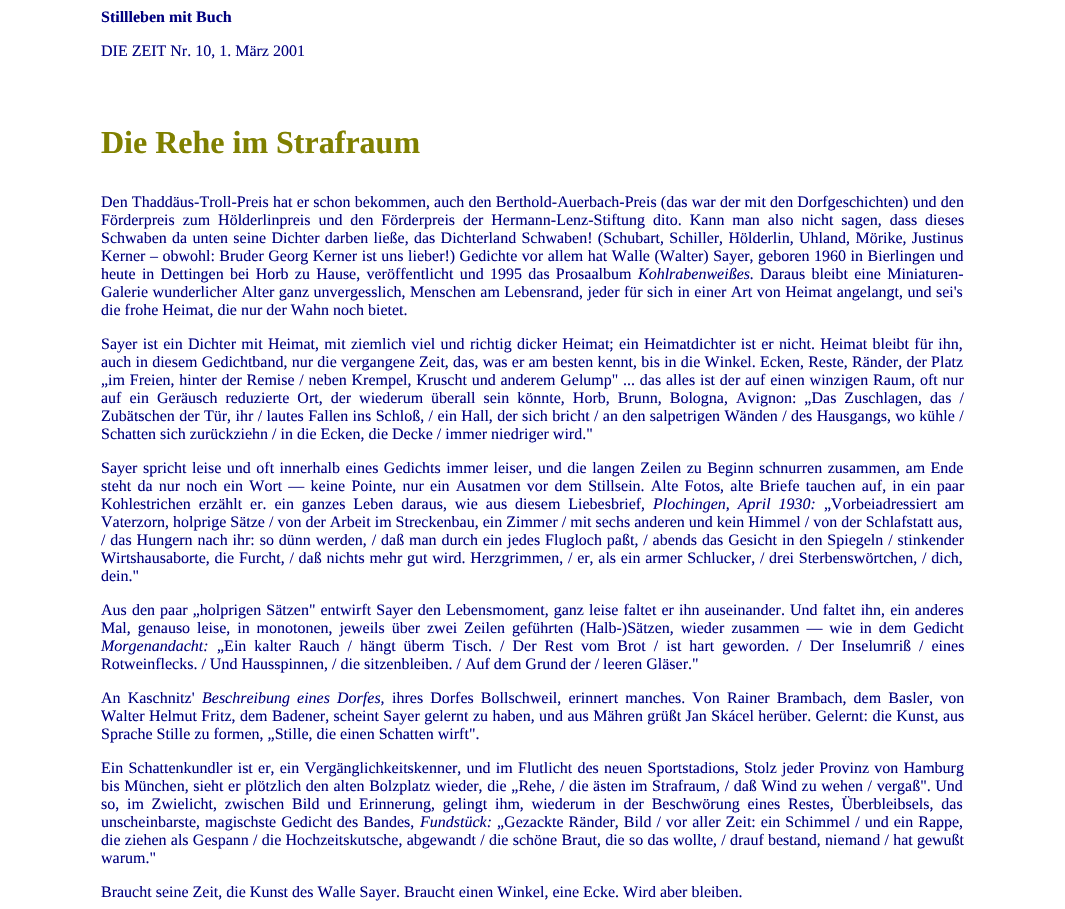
#include "include/core/SkBlurTypes.h"
#include "include/core/SkCanvas.h"
#include "include/core/SkData.h"
#include "include/core/SkFont.h"
#include "include/core/SkFontMgr.h"
#include "include/core/SkImage.h"
#include "include/core/SkMaskFilter.h"
#include "include/core/SkPaint.h"
#include "include/core/SkPathBuilder.h"
#include "include/core/SkTextBlob.h"
#include "include/effects/SkDashPathEffect.h"
#include "include/effects/SkGradientShader.h"
#include "include/utils/SkParsePath.h"

extern sk_sp<SkFontMgr> fontMgr;

void draw(SkCanvas* canvas) {
  SkPaint p;
  p.setAntiAlias(true);
  auto spacedText = [&](const char* s, float x, float y, const SkFont& font, const SkPaint& ink, float letter, float word) {
    std::vector<SkGlyphID> glyphs(font.countText(s, strlen(s), SkTextEncoding::kUTF8));
    std::vector<float> xs(glyphs.size());
    font.textToGlyphs(s, strlen(s), SkTextEncoding::kUTF8, glyphs);
    font.getXPos(glyphs, xs, x);
    float extra = 0;
    for (size_t i = 0; i < glyphs.size(); i++) {
      xs[i] += extra;
      extra += letter + word * (glyphs[i] == font.unicharToGlyph(' '));
    }
    canvas->drawTextBlob(SkTextBlob::MakeFromPosHGlyphs(glyphs, xs, y, font), 0, 0, ink);
  };
  canvas->clear(SK_ColorWHITE);
  SkFont font1(fontMgr->matchFamilyStyle("Liberation Serif", SkFontStyle::Bold()), 16);
  font1.setSubpixel(true);
  p.setColor(SkColorSetRGB(0, 0, 128));
  canvas->drawString("Stillleben mit Buch", 101, 22, font1, p);
  SkFont font2(fontMgr->matchFamilyStyle("Liberation Serif", SkFontStyle::Normal()), 16);
  font2.setSubpixel(true);
  canvas->drawString("DIE ZEIT Nr. 10, 1. März 2001", 101, 56, font2, p);
  SkFont font3(fontMgr->matchFamilyStyle("Liberation Serif", SkFontStyle::Bold()), 32);
  font3.setSubpixel(true);
  p.setColor(SkColorSetRGB(128, 128, 0));
  canvas->drawString("Die Rehe im Strafraum", 101, 153, font3, p);
  p.setColor(SkColorSetRGB(0, 0, 128));
  spacedText("Den Thaddäus-Troll-Preis hat er schon bekommen, auch den Berthold-Auerbach-Preis (das war der mit den Dorfgeschichten) und den", 101, 207, font2, p, 0, 0.2f);
  spacedText("Förderpreis zum Hölderlinpreis und den Förderpreis der Hermann-Lenz-Stiftung dito. Kann man also nicht sagen, dass dieses", 101, 225, font2, p, 0, 3.9f);
  spacedText("Schwaben da unten seine Dichter darben ließe, das Dichterland Schwaben! (Schubart, Schiller, Hölderlin, Uhland, Mörike, Justinus", 101, 243, font2, p, 0, 1.3f);
  spacedText("Kerner – obwohl: Bruder Georg Kerner ist uns lieber!) Gedichte vor allem hat Walle (Walter) Sayer, geboren 1960 in Bierlingen und", 101, 261, font2, p, 0, 0.5f);
  spacedText("heute in Dettingen bei Horb zu Hause, veröffentlicht und 1995 das Prosaalbum", 101, 279, font2, p, 0, 2.25f);
  SkFont font4(fontMgr->matchFamilyStyle("Liberation Serif", SkFontStyle::Italic()), 16);
  font4.setSubpixel(true);
  canvas->drawString("Kohlrabenweißes.", 638, 279, font4, p);
  spacedText("Daraus bleibt eine Miniaturen-", 760, 279, font2, p, 0, 2.25f);
  spacedText("Galerie wunderlicher Alter ganz unvergesslich, Menschen am Lebensrand, jeder für sich in einer Art von Heimat angelangt, und sei's", 101, 297, font2, p, 0, 0.5f);
  canvas->drawString("die frohe Heimat, die nur der Wahn noch bietet.", 101, 315, font2, p);
  spacedText("Sayer ist ein Dichter mit Heimat, mit ziemlich viel und richtig dicker Heimat; ein Heimatdichter ist er nicht. Heimat bleibt für ihn,", 101, 349, font2, p, 0, 1.3f);
  spacedText("auch in diesem Gedichtband, nur die vergangene Zeit, das, was er am besten kennt, bis in die Winkel. Ecken, Reste, Ränder, der Platz", 101, 367, font2, p, 0, 0.25f);
  spacedText("„im Freien, hinter der Remise / neben Krempel, Kruscht und anderem Gelump\" ... das alles ist der auf einen winzigen Raum, oft nur", 101, 385, font2, p, 0, 0.75f);
  spacedText("auf ein Geräusch reduzierte Ort, der wiederum überall sein könnte, Horb, Brunn, Bologna, Avignon: „Das Zuschlagen, das /", 101, 403, font2, p, 0, 4);
  spacedText("Zubätschen der Tür, ihr / lautes Fallen ins Schloß, / ein Hall, der sich bricht / an den salpetrigen Wänden / des Hausgangs, wo kühle /", 101, 421, font2, p, 0, 0.4f);
  canvas->drawString("Schatten sich zurückziehn / in die Ecken, die Decke / immer niedriger wird.\"", 101, 439, font2, p);
  spacedText("Sayer spricht leise und oft innerhalb eines Gedichts immer leiser, und die langen Zeilen zu Beginn schnurren zusammen, am Ende", 101, 473, font2, p, 0, 1.5f);
  spacedText("steht da nur noch ein Wort — keine Pointe, nur ein Ausatmen vor dem Stillsein. Alte Fotos, alte Briefe tauchen auf, in ein paar", 101, 491, font2, p, 0, 2.2f);
  spacedText("Kohlestrichen erzählt er. ein ganzes Leben daraus, wie aus diesem Liebesbrief,", 101, 509, font2, p, 0, 3.9f);
  spacedText("Plochingen, April 1930:", 653, 509, font4, p, 0, 3.9f);
  spacedText("„Vorbeiadressiert am", 824, 509, font2, p, 0, 3.9f);
  canvas->drawString("Vaterzorn, holprige Sätze / von der Arbeit im Streckenbau, ein Zimmer / mit sechs anderen und kein Himmel / von der Schlafstatt aus,", 101, 527, font2, p);
  spacedText("/ das Hungern nach ihr: so dünn werden, / daß man durch ein jedes Flugloch paßt, / abends das Gesicht in den Spiegeln / stinkender", 101, 545, font2, p, 0, 0.9f);
  spacedText("Wirtshausaborte, die Furcht, / daß nichts mehr gut wird. Herzgrimmen, / er, als ein armer Schlucker, / drei Sterbenswörtchen, / dich,", 101, 563, font2, p, 0, 0.75f);
  canvas->drawString("dein.\"", 101, 581, font2, p);
  spacedText("Aus den paar „holprigen Sätzen\" entwirft Sayer den Lebensmoment, ganz leise faltet er ihn auseinander. Und faltet ihn, ein anderes", 101, 615, font2, p, 0, 1.1f);
  spacedText("Mal, genauso leise, in monotonen, jeweils über zwei Zeilen geführten (Halb-)Sätzen, wieder zusammen — wie in dem Gedicht", 101, 633, font2, p, 0, 2.9f);
  canvas->drawString("Morgenandacht:", 101, 651, font4, p);
  spacedText("„Ein kalter Rauch / hängt überm Tisch. / Der Rest vom Brot / ist hart geworden. / Der Inselumriß / eines", 217, 651, font2, p, 0, 4);
  canvas->drawString("Rotweinflecks. / Und Hausspinnen, / die sitzenbleiben. / Auf dem Grund der / leeren Gläser.\"", 101, 669, font2, p);
  spacedText("An Kaschnitz'", 101, 703, font2, p, 0, 3.1f);
  spacedText("Beschreibung eines Dorfes,", 202, 703, font4, p, 0, 3.1f);
  spacedText("ihres Dorfes Bollschweil, erinnert manches. Von Rainer Brambach, dem Basler, von", 392, 703, font2, p, 0, 3.1f);
  spacedText("Walter Helmut Fritz, dem Badener, scheint Sayer gelernt zu haben, und aus Mähren grüßt Jan Skácel herüber. Gelernt: die Kunst, aus", 101, 721, font2, p, 0, 0.4f);
  canvas->drawString("Sprache Stille zu formen, „Stille, die einen Schatten wirft\".", 101, 739, font2, p);
  spacedText("Ein Schattenkundler ist er, ein Vergänglichkeitskenner, und im Flutlicht des neuen Sportstadions, Stolz jeder Provinz von Hamburg", 101, 773, font2, p, 0, 1.25f);
  spacedText("bis München, sieht er plötzlich den alten Bolzplatz wieder, die „Rehe, / die ästen im Strafraum, / daß Wind zu wehen / vergaß\". Und", 101, 791, font2, p, 0, 0.6f);
  spacedText("so, im Zwielicht, zwischen Bild und Erinnerung, gelingt ihm, wiederum in der Beschwörung eines Restes, Überbleibsels, das", 101, 809, font2, p, 0, 3.75f);
  spacedText("unscheinbarste, magischste Gedicht des Bandes,", 101, 827, font2, p, 0, 1);
  canvas->drawString("Fundstück:", 420, 827, font4, p);
  spacedText("„Gezackte Ränder, Bild / vor aller Zeit: ein Schimmel / und ein Rappe,", 497, 827, font2, p, 0, 1);
  spacedText("die ziehen als Gespann / die Hochzeitskutsche, abgewandt / die schöne Braut, die so das wollte, / drauf bestand, niemand / hat gewußt", 101, 845, font2, p, 0, 0.25f);
  canvas->drawString("warum.\"", 101, 863, font2, p);
  canvas->drawString("Braucht seine Zeit, die Kunst des Walle Sayer. Braucht einen Winkel, eine Ecke. Wird aber bleiben.", 101, 897, font2, p);
}
